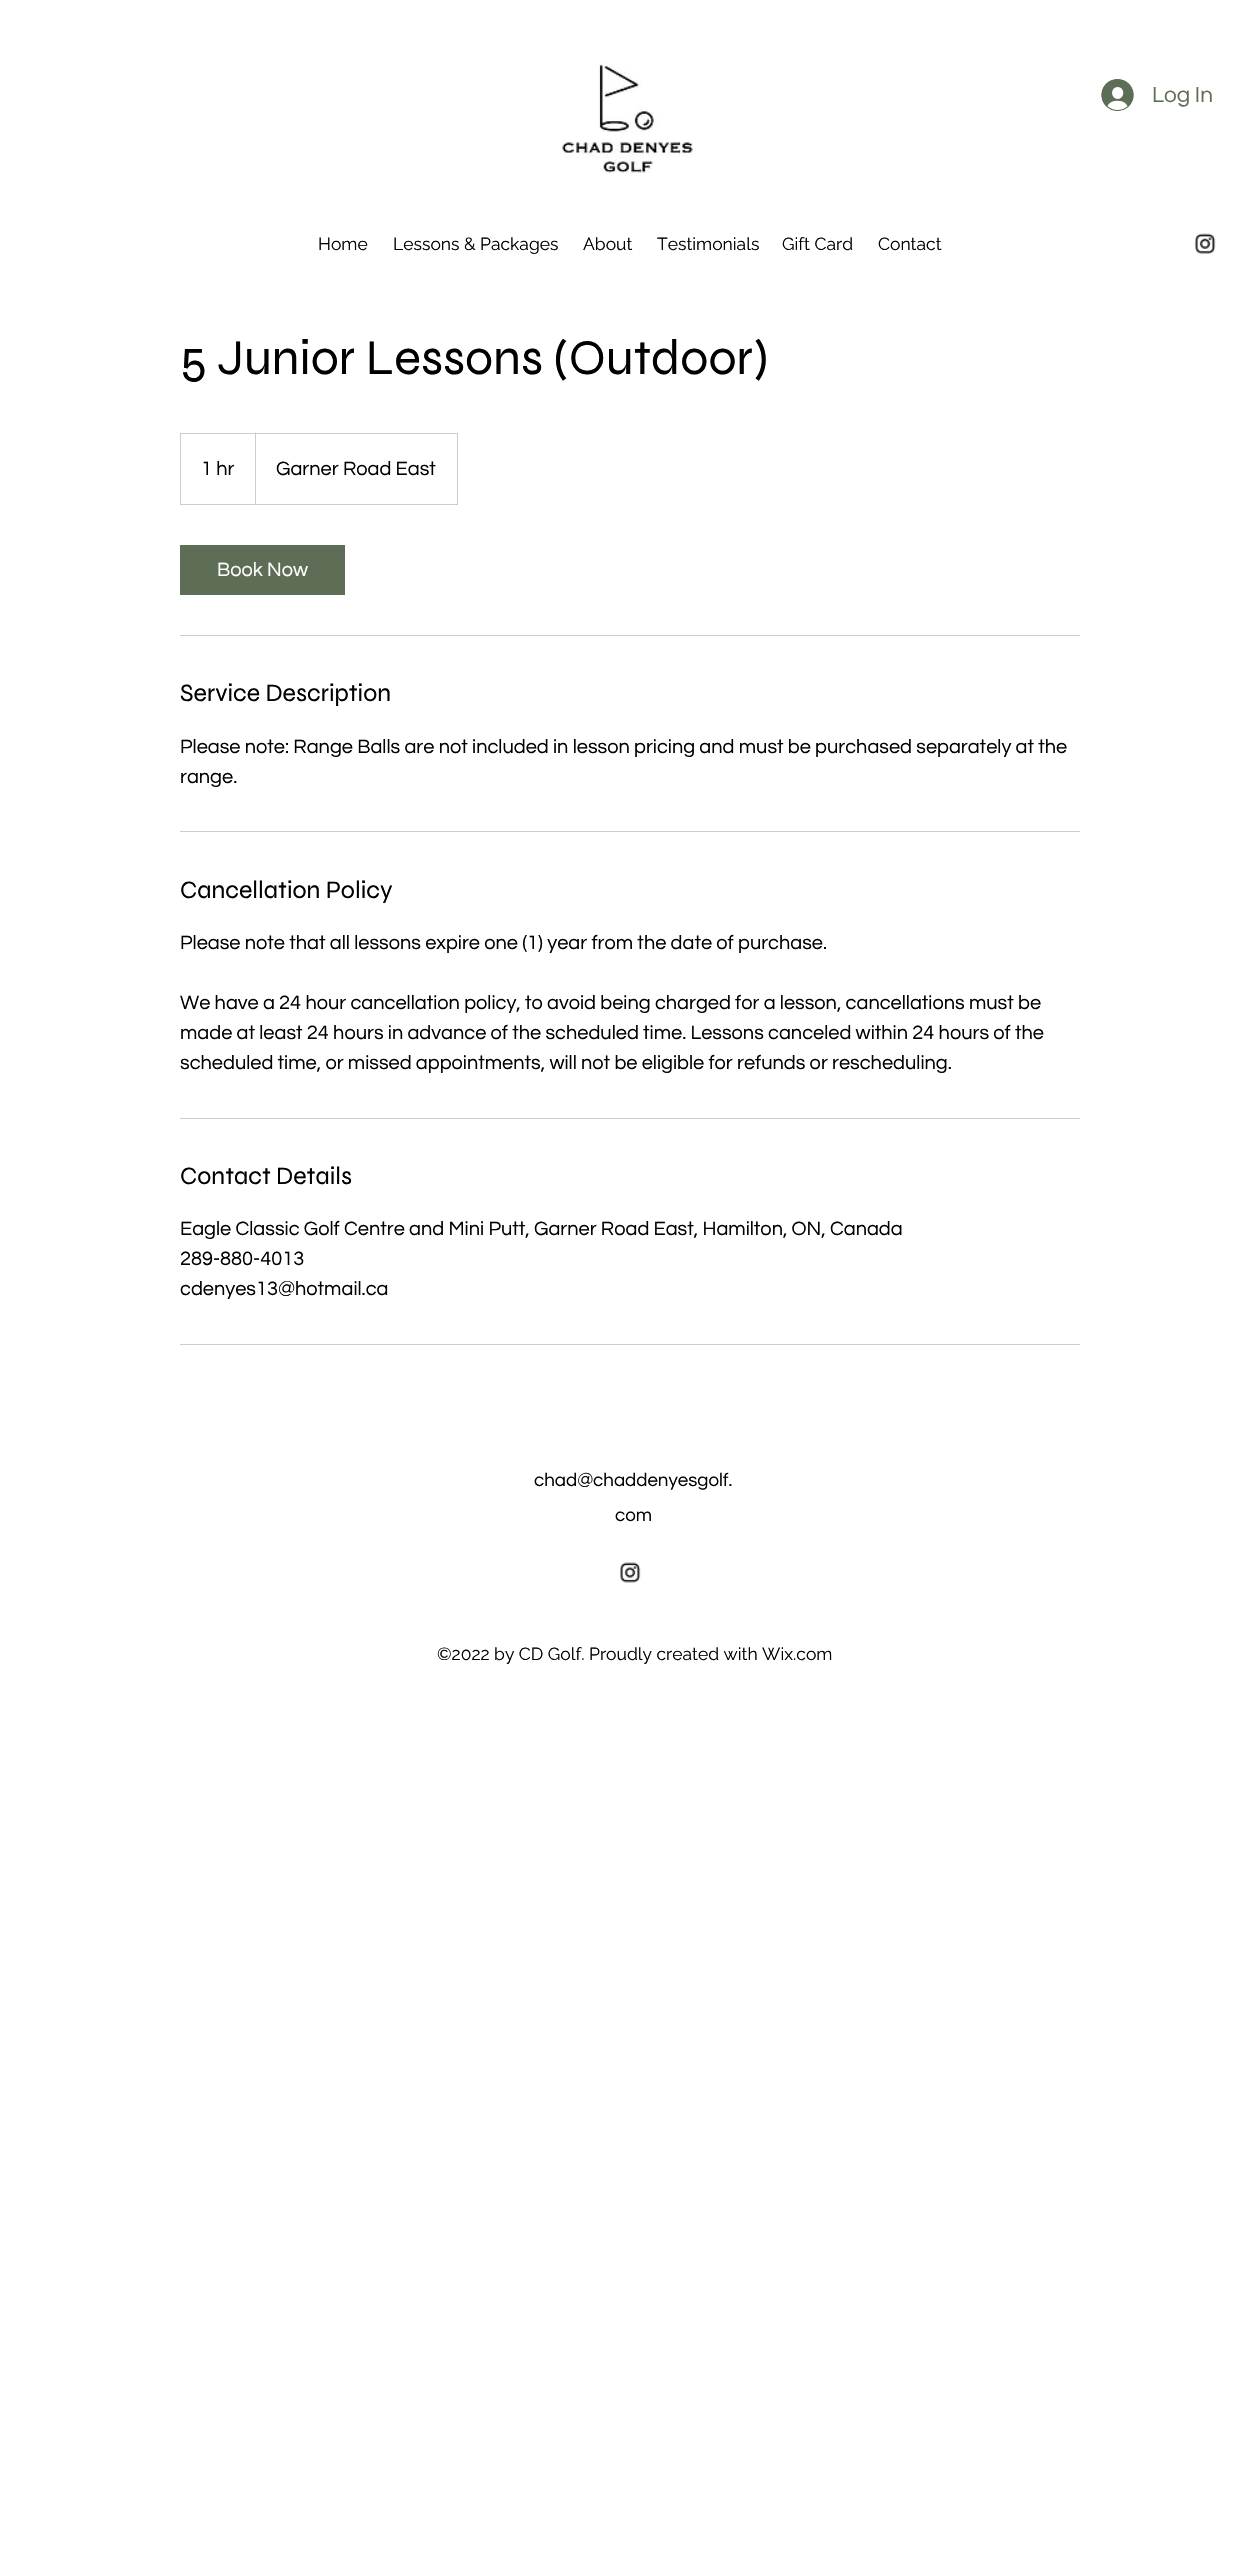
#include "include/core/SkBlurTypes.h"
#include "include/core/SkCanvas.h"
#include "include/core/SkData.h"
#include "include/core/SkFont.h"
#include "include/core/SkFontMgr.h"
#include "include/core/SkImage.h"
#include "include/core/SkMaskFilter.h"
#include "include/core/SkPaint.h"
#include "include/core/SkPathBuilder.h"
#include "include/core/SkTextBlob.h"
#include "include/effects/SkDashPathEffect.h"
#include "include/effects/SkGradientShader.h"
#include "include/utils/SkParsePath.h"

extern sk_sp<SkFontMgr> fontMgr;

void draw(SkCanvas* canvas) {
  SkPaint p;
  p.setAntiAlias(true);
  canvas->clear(SK_ColorWHITE);
  canvas->drawImageRect(SkImages::DeferredFromEncodedData(SkData::MakeFromFileName("images/1.png")), SkRect::MakeLTRB(562, 63, 693, 173), SkSamplingOptions());
  canvas->drawImageRect(SkImages::DeferredFromEncodedData(SkData::MakeFromFileName("images/2.png")), SkRect::MakeLTRB(1101, 79, 1134, 111), SkSamplingOptions());
  canvas->drawImageRect(SkImages::DeferredFromEncodedData(SkData::MakeFromFileName("images/3.png")), SkRect::MakeLTRB(1194, 233, 1216, 254), SkSamplingOptions());
  p.setStyle(SkPaint::kStroke_Style);
  p.setStrokeWidth(1);
  p.setColor(SkColorSetRGB(204, 204, 204));
  canvas->drawRect(SkRect::MakeLTRB(180.5f, 433.5f, 457.5f, 504.5f), p);
  p.setStyle(SkPaint::kFill_Style);
  canvas->drawPath(SkPathBuilder().moveTo(255, 504).lineTo(255, 432).lineTo(256, 434).lineTo(256, 504).close().detach(), p);
  p.setColor(SkColorSetRGB(94, 109, 85));
  canvas->drawRect(SkRect::MakeLTRB(180, 545, 345, 595), p);
  p.setColor(SkColorSetRGB(204, 204, 204));
  canvas->drawRect(SkRect::MakeLTRB(180, 635, 1080, 636), p);
  canvas->drawRect(SkRect::MakeLTRB(180, 831, 1080, 832), p);
  canvas->drawRect(SkRect::MakeLTRB(180, 1118, 1080, 1119), p);
  canvas->drawRect(SkRect::MakeLTRB(180, 1344, 1080, 1345), p);
  canvas->drawImageRect(SkImages::DeferredFromEncodedData(SkData::MakeFromFileName("images/4.png")), SkRect::MakeLTRB(619, 1562, 641, 1583), SkSamplingOptions());
  SkFont font1(fontMgr->matchFamilyStyle("Questrial", SkFontStyle::Normal()), 22.5f);
  font1.setSubpixel(true);
  p.setColor(SkColorSetRGB(94, 109, 85));
  canvas->drawString("Log In", 1152, 102, font1, p);
  SkFont font2(fontMgr->matchFamilyStyle("Raleway", SkFontStyle::Normal()), 17.5f);
  font2.setSubpixel(true);
  p.setColor(SK_ColorBLACK);
  canvas->drawString("Home", 318, 250, font2, p);
  canvas->drawString("Lessons & Packages", 393, 250, font2, p);
  canvas->drawString("About", 583, 250, font2, p);
  canvas->drawString("Testimonials", 657, 250, font2, p);
  canvas->drawString("Gift Card", 782, 250, font2, p);
  canvas->drawString("Contact", 878, 250, font2, p);
  SkFont font3(fontMgr->matchFamilyStyle("Syne", SkFontStyle::Normal()), 50);
  font3.setSubpixel(true);
  canvas->drawString("5 Junior Lessons (Outdoor)", 180, 374, font3, p);
  SkFont font4(fontMgr->matchFamilyStyle("Questrial", SkFontStyle::Normal()), 20);
  font4.setSubpixel(true);
  canvas->drawString("1 hr", 201, 475, font4, p);
  canvas->drawString("Garner Road East", 276, 475, font4, p);
  p.setColor(SK_ColorWHITE);
  canvas->drawString("Book Now", 217, 576, font4, p);
  SkFont font5(fontMgr->matchFamilyStyle("Syne", SkFontStyle::Normal()), 25);
  font5.setSubpixel(true);
  p.setColor(SK_ColorBLACK);
  canvas->drawString("Service Description", 180, 701, font5, p);
  canvas->drawString("Please note: Range Balls are not included in lesson pricing and must be purchased separately at the", 180, 753, font4, p);
  canvas->drawString("range.", 180, 783, font4, p);
  canvas->drawString("Cancellation Policy", 180, 898, font5, p);
  canvas->drawString("Please note that all lessons expire one (1) year from the date of purchase.", 180, 949, font4, p);
  canvas->drawString("We have a 24 hour cancellation policy, to avoid being charged for a lesson, cancellations must be", 180, 1009, font4, p);
  canvas->drawString("made at least 24 hours in advance of the scheduled time. Lessons canceled within 24 hours of the", 180, 1039, font4, p);
  canvas->drawString("scheduled time, or missed appointments, will not be eligible for refunds or rescheduling.", 180, 1069, font4, p);
  canvas->drawString("Contact Details", 180, 1184, font5, p);
  canvas->drawString("Eagle Classic Golf Centre and Mini Putt, Garner Road East, Hamilton, ON, Canada", 180, 1235, font4, p);
  canvas->drawString("289-880-4013", 180, 1265, font4, p);
  canvas->drawString("cdenyes13@hotmail.ca", 180, 1295, font4, p);
  SkFont font6(fontMgr->matchFamilyStyle("Questrial", SkFontStyle::Normal()), 18.75f);
  font6.setSubpixel(true);
  canvas->drawString("chad@chaddenyesgolf.", 534, 1486, font6, p);
  canvas->drawString("com", 615, 1521, font6, p);
  canvas->drawString("©2022 by CD Golf. Proudly created with Wix.com", 437, 1660, font2, p);
}
